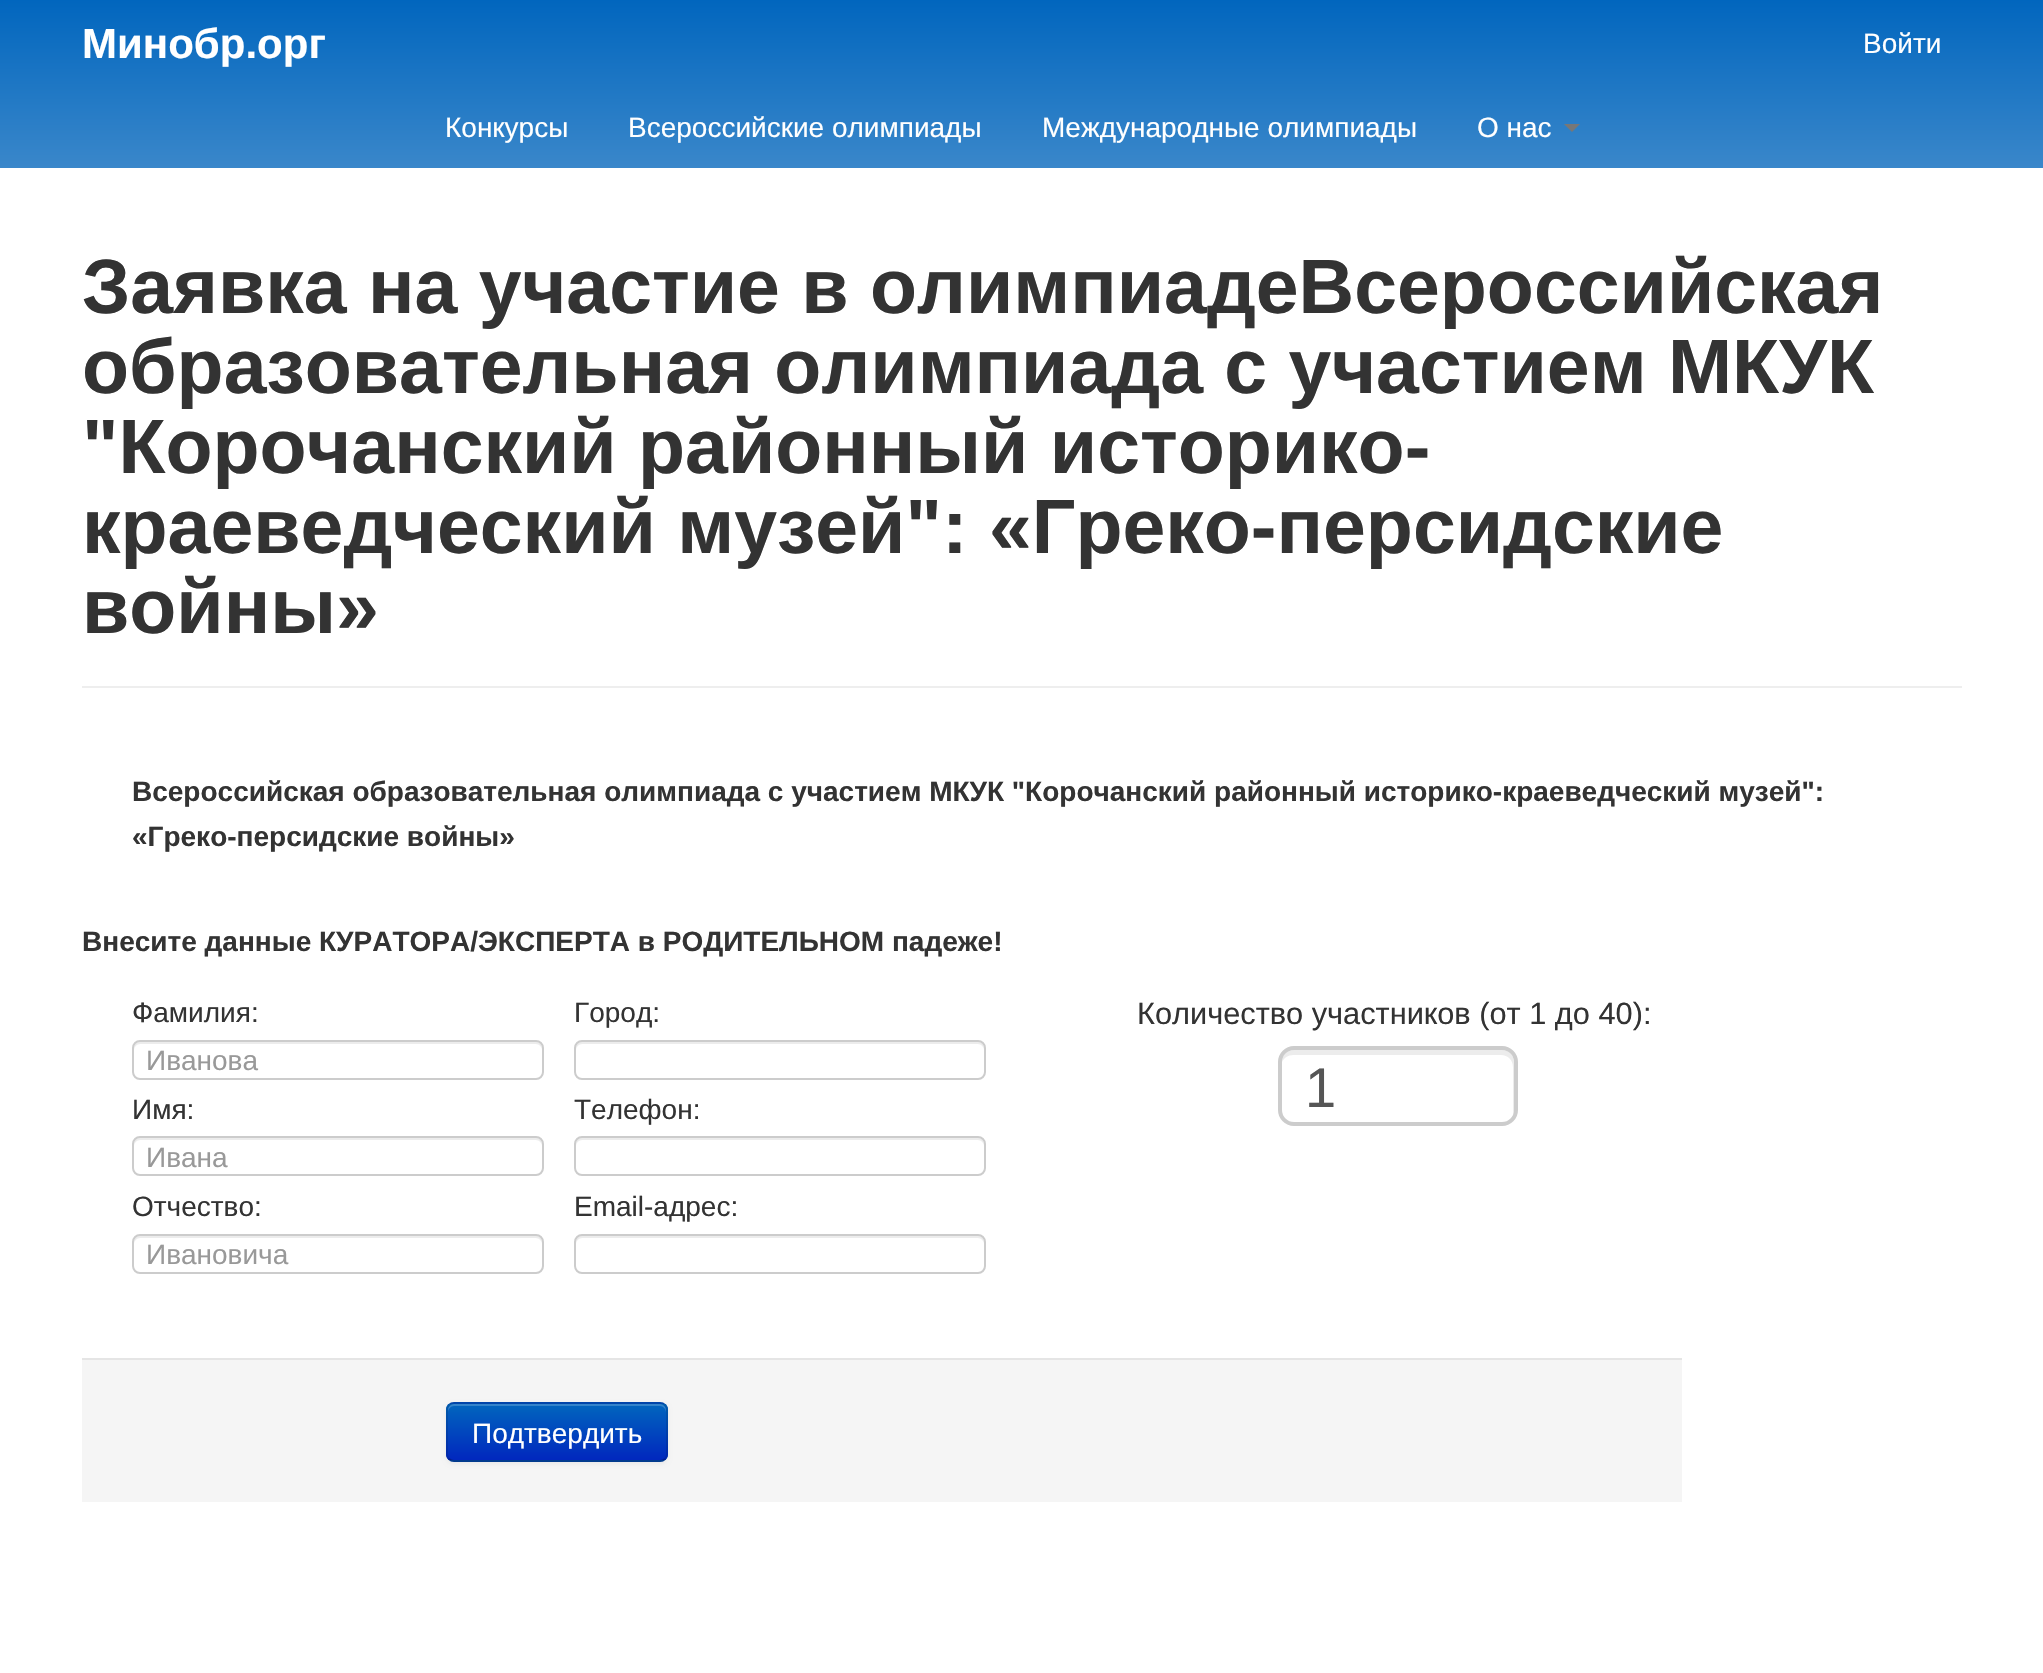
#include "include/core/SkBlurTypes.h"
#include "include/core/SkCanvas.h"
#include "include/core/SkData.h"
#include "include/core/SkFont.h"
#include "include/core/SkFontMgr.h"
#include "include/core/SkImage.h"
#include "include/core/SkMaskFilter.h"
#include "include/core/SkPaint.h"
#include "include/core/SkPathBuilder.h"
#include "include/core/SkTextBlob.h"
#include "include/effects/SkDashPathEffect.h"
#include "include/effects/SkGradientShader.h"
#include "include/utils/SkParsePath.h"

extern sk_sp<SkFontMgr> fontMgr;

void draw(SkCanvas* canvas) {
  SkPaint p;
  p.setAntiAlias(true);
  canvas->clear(SK_ColorWHITE);
  {
    const SkColor colors[] = {SkColorSetRGB(1, 102, 190), SkColorSetRGB(58, 135, 202)};
    const float stops[] = {0, 1};
    const SkPoint ends[] = {{1022, 0}, {1022, 168}};
    p.setShader(SkGradientShader::MakeLinear(ends, colors, stops, 2, SkTileMode::kClamp));
    p.setAlpha(255);
  }
  canvas->drawRect(SkRect::MakeLTRB(0, 0, 2043, 168), p);
  p.setShader(nullptr);
  p.setColor(SkColorSetRGB(119, 119, 119));
  canvas->drawPath(SkPathBuilder().moveTo(1564, 124).lineTo(1580, 124).lineTo(1572, 132).close().detach(), p);
  p.setColor(SkColorSetRGB(238, 238, 238));
  canvas->drawRect(SkRect::MakeLTRB(82, 686, 1962, 688), p);
  p.setColor(SkColorSetRGB(236, 236, 236));
  canvas->drawPath(SkPathBuilder().moveTo(140, 1044).lineTo(536, 1044).cubicTo(539, 1044, 542, 1047, 542, 1050).cubicTo(542, 1046, 541, 1042, 536, 1042).lineTo(140, 1042).cubicTo(135, 1042, 134, 1046, 134, 1050).cubicTo(134, 1047, 137, 1044, 140, 1044).close().detach(), p);
  p.setStyle(SkPaint::kStroke_Style);
  p.setStrokeWidth(2);
  p.setColor(SkColorSetRGB(204, 204, 204));
  canvas->drawRoundRect(SkRect::MakeLTRB(133, 1041, 543, 1079), 7, 7, p);
  p.setStyle(SkPaint::kFill_Style);
  p.setColor(SkColorSetRGB(236, 236, 236));
  canvas->drawPath(SkPathBuilder().moveTo(140, 1140).lineTo(536, 1140).cubicTo(539, 1140, 542, 1143, 542, 1146).cubicTo(542, 1142, 541, 1138, 536, 1138).lineTo(140, 1138).cubicTo(135, 1138, 134, 1142, 134, 1146).cubicTo(134, 1143, 137, 1140, 140, 1140).close().detach(), p);
  p.setStyle(SkPaint::kStroke_Style);
  p.setColor(SkColorSetRGB(204, 204, 204));
  canvas->drawRoundRect(SkRect::MakeLTRB(133, 1137, 543, 1175), 7, 7, p);
  p.setStyle(SkPaint::kFill_Style);
  p.setColor(SkColorSetRGB(236, 236, 236));
  canvas->drawPath(SkPathBuilder().moveTo(140, 1238).lineTo(536, 1238).cubicTo(539, 1238, 542, 1241, 542, 1244).cubicTo(542, 1240, 541, 1236, 536, 1236).lineTo(140, 1236).cubicTo(135, 1236, 134, 1240, 134, 1244).cubicTo(134, 1241, 137, 1238, 140, 1238).close().detach(), p);
  p.setStyle(SkPaint::kStroke_Style);
  p.setColor(SkColorSetRGB(204, 204, 204));
  canvas->drawRoundRect(SkRect::MakeLTRB(133, 1235, 543, 1273), 7, 7, p);
  p.setStyle(SkPaint::kFill_Style);
  p.setColor(SkColorSetRGB(236, 236, 236));
  canvas->drawPath(SkPathBuilder().moveTo(582, 1044).lineTo(978, 1044).cubicTo(981, 1044, 984, 1047, 984, 1050).cubicTo(984, 1046, 983, 1042, 978, 1042).lineTo(582, 1042).cubicTo(577, 1042, 576, 1046, 576, 1050).cubicTo(576, 1047, 579, 1044, 582, 1044).close().detach(), p);
  p.setStyle(SkPaint::kStroke_Style);
  p.setColor(SkColorSetRGB(204, 204, 204));
  canvas->drawRoundRect(SkRect::MakeLTRB(575, 1041, 985, 1079), 7, 7, p);
  p.setStyle(SkPaint::kFill_Style);
  p.setColor(SkColorSetRGB(236, 236, 236));
  canvas->drawPath(SkPathBuilder().moveTo(582, 1140).lineTo(978, 1140).cubicTo(981, 1140, 984, 1143, 984, 1146).cubicTo(984, 1142, 983, 1138, 978, 1138).lineTo(582, 1138).cubicTo(577, 1138, 576, 1142, 576, 1146).cubicTo(576, 1143, 579, 1140, 582, 1140).close().detach(), p);
  p.setStyle(SkPaint::kStroke_Style);
  p.setColor(SkColorSetRGB(204, 204, 204));
  canvas->drawRoundRect(SkRect::MakeLTRB(575, 1137, 985, 1175), 7, 7, p);
  p.setStyle(SkPaint::kFill_Style);
  p.setColor(SkColorSetRGB(236, 236, 236));
  canvas->drawPath(SkPathBuilder().moveTo(582, 1238).lineTo(978, 1238).cubicTo(981, 1238, 984, 1241, 984, 1244).cubicTo(984, 1240, 983, 1236, 978, 1236).lineTo(582, 1236).cubicTo(577, 1236, 576, 1240, 576, 1244).cubicTo(576, 1241, 579, 1238, 582, 1238).close().detach(), p);
  p.setStyle(SkPaint::kStroke_Style);
  p.setColor(SkColorSetRGB(204, 204, 204));
  canvas->drawRoundRect(SkRect::MakeLTRB(575, 1235, 985, 1273), 7, 7, p);
  p.setStyle(SkPaint::kFill_Style);
  p.setColor(SkColorSetRGB(236, 236, 236));
  canvas->drawPath(SkPathBuilder().moveTo(1293, 1055).lineTo(1501, 1055).cubicTo(1508, 1055, 1513, 1060, 1513, 1067).lineTo(1513, 1115).lineTo(1514, 1110).lineTo(1514, 1062).cubicTo(1514, 1055, 1509, 1050, 1502, 1050).lineTo(1294, 1050).cubicTo(1287, 1050, 1282, 1055, 1282, 1062).cubicTo(1284, 1058, 1288, 1055, 1293, 1055).close().detach(), p);
  p.setStyle(SkPaint::kStroke_Style);
  p.setStrokeWidth(4);
  p.setColor(SkColorSetRGB(204, 204, 204));
  canvas->drawRoundRect(SkRect::MakeLTRB(1280, 1048, 1516, 1124), 14, 14, p);
  p.setStyle(SkPaint::kFill_Style);
  p.setColor(SkColorSetRGB(245, 245, 245));
  canvas->drawRect(SkRect::MakeLTRB(82, 1360, 1682, 1502), p);
  p.setColor(SkColorSetRGB(229, 229, 229));
  canvas->drawRect(SkRect::MakeLTRB(82, 1358, 1682, 1360), p);
  p.setColor(SkColorSetARGB(13, 0, 0, 0));
  p.setMaskFilter(SkMaskFilter::MakeBlur(kNormal_SkBlurStyle, 2));
  canvas->drawRoundRect(SkRect::MakeLTRB(446, 1404, 668, 1464), 8, 8, p);
  p.setMaskFilter(nullptr);
  p.setColor(SkColorSetRGB(1, 77, 190));
  canvas->drawRoundRect(SkRect::MakeLTRB(446, 1402, 668, 1462), 8, 8, p);
  canvas->save();
  canvas->clipPath(SkPathBuilder().moveTo(454, 1402).lineTo(660, 1402).cubicTo(664.5f, 1402, 668, 1405.5f, 668, 1410).lineTo(668, 1454).cubicTo(668, 1458.5f, 664.5f, 1462, 660, 1462).lineTo(454, 1462).cubicTo(449.5f, 1462, 446, 1458.5f, 446, 1454).lineTo(446, 1410).cubicTo(446, 1405.5f, 449.5f, 1402, 454, 1402).close().detach(), true);
  {
    const SkColor colors[] = {SkColorSetRGB(1, 102, 190), SkColorSetRGB(1, 39, 190)};
    const float stops[] = {0, 1};
    const SkPoint ends[] = {{557, 1404}, {557, 1460}};
    p.setShader(SkGradientShader::MakeLinear(ends, colors, stops, 2, SkTileMode::kClamp));
    p.setAlpha(255);
  }
  canvas->drawRect(SkRect::MakeLTRB(446, 1404, 668, 1460), p);
  canvas->restore();
  p.setShader(nullptr);
  p.setColor(SkColorSetARGB(51, 255, 255, 255));
  canvas->drawPath(SkPathBuilder().moveTo(454, 1406).lineTo(660, 1406).cubicTo(663, 1406, 666, 1409, 666, 1412).lineTo(666, 1410).cubicTo(666, 1407, 663, 1404, 660, 1404).lineTo(454, 1404).cubicTo(451, 1404, 448, 1407, 448, 1410).lineTo(448, 1412).cubicTo(448, 1409, 451, 1406, 454, 1406).close().detach(), p);
  p.setStyle(SkPaint::kStroke_Style);
  p.setStrokeWidth(2);
  p.setColor(SkColorSetARGB(64, 0, 0, 0));
  canvas->drawPath(SkPathBuilder().moveTo(665, 1459).cubicTo(663.5f, 1460.5f, 662, 1461, 660, 1461).lineTo(454, 1461).cubicTo(452, 1461, 450.5f, 1460.5f, 449, 1459).detach(), p);
  p.setColor(SkColorSetARGB(26, 0, 0, 0));
  canvas->drawPath(SkPathBuilder().moveTo(449, 1459).cubicTo(447.5f, 1457.5f, 447, 1456, 447, 1454).lineTo(447, 1410).cubicTo(447, 1408, 447.5f, 1406.5f, 449, 1405).cubicTo(450.5f, 1403.5f, 452, 1403, 454, 1403).lineTo(660, 1403).cubicTo(662, 1403, 663.5f, 1403.5f, 665, 1405).cubicTo(666.5f, 1406.5f, 667, 1408, 667, 1410).lineTo(667, 1454).cubicTo(667, 1456, 666.5f, 1457.5f, 665, 1459).detach(), p);
  SkFont font1(fontMgr->matchFamilyStyle("Liberation Sans", SkFontStyle::Bold()), 42);
  font1.setSubpixel(true);
  p.setStyle(SkPaint::kFill_Style);
  p.setColor(SK_ColorWHITE);
  canvas->drawString("Минобр.орг", 82, 58, font1, p);
  SkFont font2(fontMgr->matchFamilyStyle("Liberation Sans", SkFontStyle::Normal()), 28);
  font2.setSubpixel(true);
  canvas->drawString("Войти", 1863, 53, font2, p);
  canvas->drawString("Конкурсы", 445, 137, font2, p);
  canvas->drawString("Всероссийские олимпиады", 628, 137, font2, p);
  canvas->drawString("Международные олимпиады", 1042, 137, font2, p);
  canvas->drawString("О нас", 1477, 137, font2, p);
  SkFont font3(fontMgr->matchFamilyStyle("Liberation Sans", SkFontStyle::Bold()), 77);
  font3.setSubpixel(true);
  p.setColor(SkColorSetRGB(51, 51, 51));
  canvas->drawString("Заявка на участие в олимпиадеВсероссийская", 82, 313, font3, p);
  canvas->drawString("образовательная олимпиада с участием МКУК", 82, 393, font3, p);
  canvas->drawString("\"Корочанский районный историко-", 82, 473, font3, p);
  canvas->drawString("краеведческий музей\": «Греко-персидские", 82, 553, font3, p);
  canvas->drawString("войны»", 82, 633, font3, p);
  SkFont font4(fontMgr->matchFamilyStyle("Liberation Sans", SkFontStyle::Bold()), 28);
  font4.setSubpixel(true);
  canvas->drawString("Всероссийская образовательная олимпиада с участием МКУК \"Корочанский районный историко-краеведческий музей\":", 132, 801, font4, p);
  canvas->drawString("«Греко-персидские войны»", 132, 846, font4, p);
  canvas->drawString("Внесите данные КУРАТОРА/ЭКСПЕРТА в РОДИТЕЛЬНОМ падеже!", 82, 951, font4, p);
  canvas->drawString("Фамилия:", 132, 1022, font2, p);
  p.setColor(SkColorSetRGB(153, 153, 153));
  canvas->drawString("Иванова", 146, 1070, font2, p);
  p.setColor(SkColorSetRGB(51, 51, 51));
  canvas->drawString("Имя:", 132, 1119, font2, p);
  p.setColor(SkColorSetRGB(153, 153, 153));
  canvas->drawString("Ивана", 146, 1167, font2, p);
  p.setColor(SkColorSetRGB(51, 51, 51));
  canvas->drawString("Отчество:", 132, 1216, font2, p);
  p.setColor(SkColorSetRGB(153, 153, 153));
  canvas->drawString("Ивановича", 146, 1264, font2, p);
  p.setColor(SkColorSetRGB(51, 51, 51));
  canvas->drawString("Город:", 574, 1022, font2, p);
  canvas->drawString("Телефон:", 574, 1119, font2, p);
  canvas->drawString("Email-адрес:", 574, 1216, font2, p);
  SkFont font5(fontMgr->matchFamilyStyle("Liberation Sans", SkFontStyle::Normal()), 30.75f);
  font5.setSubpixel(true);
  canvas->drawString("Количество участников (от 1 до 40):", 1137, 1024, font5, p);
  SkFont font6(fontMgr->matchFamilyStyle("Liberation Sans", SkFontStyle::Normal()), 56);
  font6.setSubpixel(true);
  p.setColor(SkColorSetRGB(85, 85, 85));
  canvas->drawString("1", 1305, 1107, font6, p);
  p.setColor(SK_ColorWHITE);
  canvas->drawString("Подтвердить", 472, 1443, font2, p);
}
